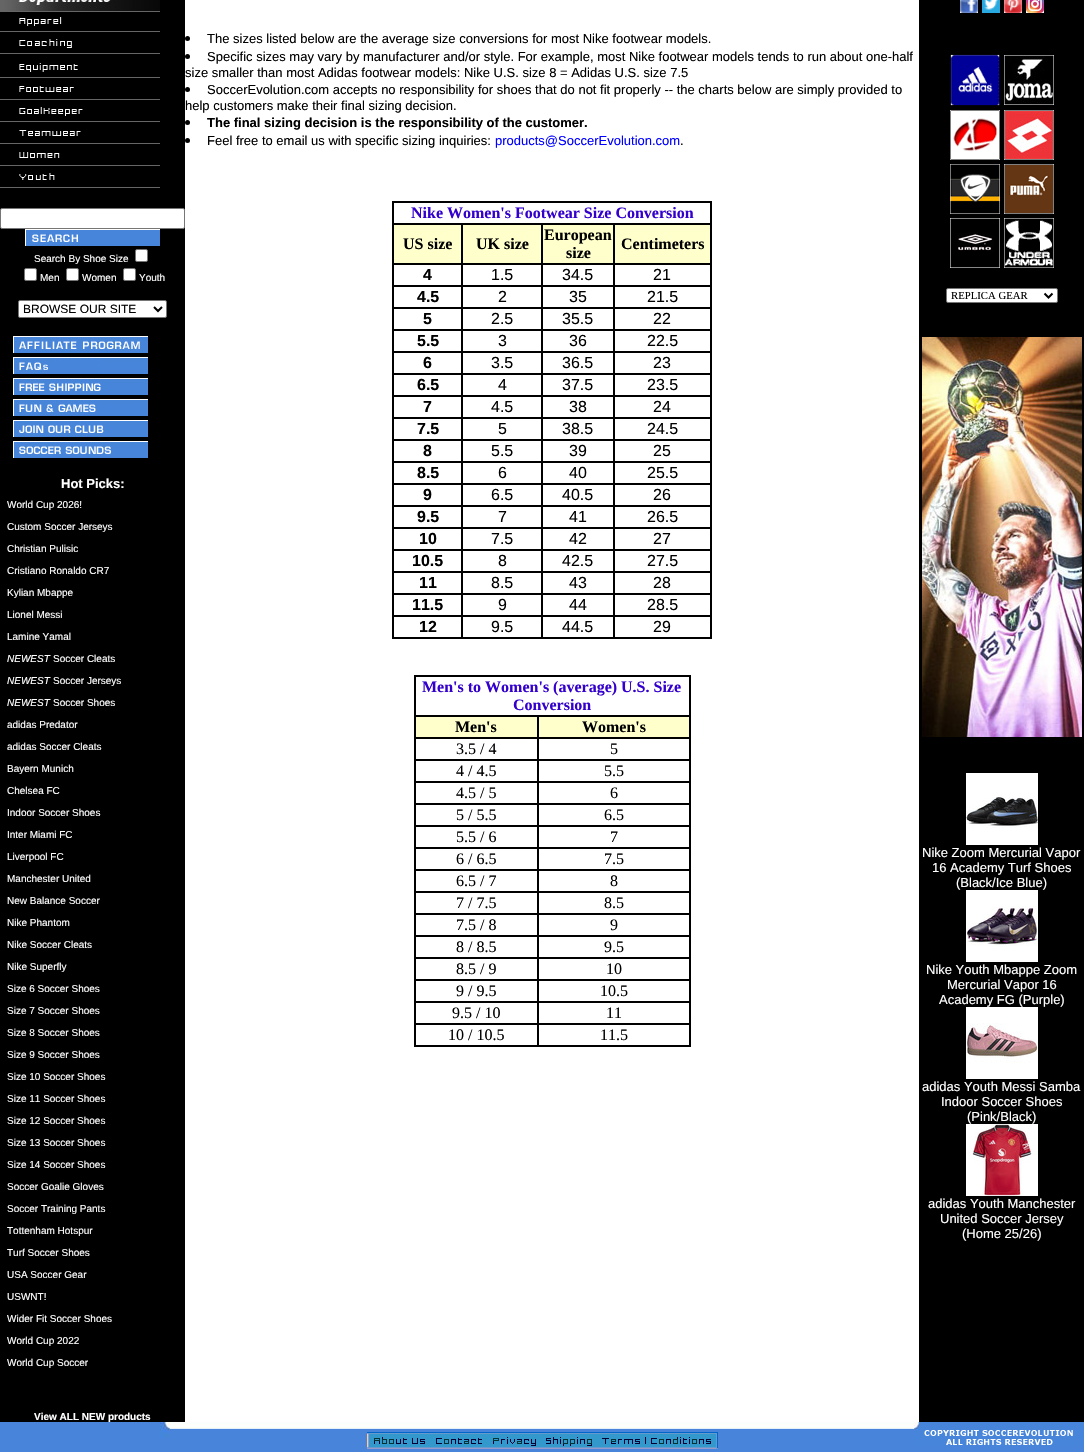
#include "include/core/SkBlurTypes.h"
#include "include/core/SkCanvas.h"
#include "include/core/SkData.h"
#include "include/core/SkFont.h"
#include "include/core/SkFontMgr.h"
#include "include/core/SkImage.h"
#include "include/core/SkMaskFilter.h"
#include "include/core/SkPaint.h"
#include "include/core/SkPathBuilder.h"
#include "include/core/SkTextBlob.h"
#include "include/effects/SkDashPathEffect.h"
#include "include/effects/SkGradientShader.h"
#include "include/utils/SkParsePath.h"

extern sk_sp<SkFontMgr> fontMgr;

void draw(SkCanvas* canvas) {
  SkPaint p;
  p.setAntiAlias(true);
  canvas->clear(SkColorSetRGB(72, 132, 218));
  p.setColor(SK_ColorBLACK);
  canvas->drawRect(SkRect::MakeLTRB(0, 0, 185, 1422), p);
  canvas->drawImageRect(SkImages::DeferredFromEncodedData(SkData::MakeFromFileName("images/1.png")), SkRect::MakeLTRB(0, 0, 160, 12), SkSamplingOptions());
  canvas->drawImageRect(SkImages::DeferredFromEncodedData(SkData::MakeFromFileName("images/2.png")), SkRect::MakeLTRB(0, 17, 160, 32), SkSamplingOptions());
  canvas->drawImageRect(SkImages::DeferredFromEncodedData(SkData::MakeFromFileName("images/3.png")), SkRect::MakeLTRB(0, 39, 160, 54), SkSamplingOptions());
  canvas->drawImageRect(SkImages::DeferredFromEncodedData(SkData::MakeFromFileName("images/4.png")), SkRect::MakeLTRB(0, 63, 160, 78), SkSamplingOptions());
  canvas->drawImageRect(SkImages::DeferredFromEncodedData(SkData::MakeFromFileName("images/5.png")), SkRect::MakeLTRB(0, 86, 160, 100), SkSamplingOptions());
  canvas->drawImageRect(SkImages::DeferredFromEncodedData(SkData::MakeFromFileName("images/6.png")), SkRect::MakeLTRB(0, 107, 160, 122), SkSamplingOptions());
  canvas->drawImageRect(SkImages::DeferredFromEncodedData(SkData::MakeFromFileName("images/7.png")), SkRect::MakeLTRB(0, 130, 160, 144), SkSamplingOptions());
  canvas->drawImageRect(SkImages::DeferredFromEncodedData(SkData::MakeFromFileName("images/8.png")), SkRect::MakeLTRB(0, 152, 160, 166), SkSamplingOptions());
  canvas->drawImageRect(SkImages::DeferredFromEncodedData(SkData::MakeFromFileName("images/9.png")), SkRect::MakeLTRB(0, 173, 160, 188), SkSamplingOptions());
  p.setColor(SK_ColorWHITE);
  canvas->drawRoundRect(SkRect::MakeLTRB(0.5f, 208.5f, 184.5f, 228.5f), 1.5f, 1.5f, p);
  p.setStyle(SkPaint::kStroke_Style);
  p.setStrokeWidth(1);
  p.setColor(SkColorSetRGB(118, 118, 118));
  canvas->drawRoundRect(SkRect::MakeLTRB(0.5f, 208.5f, 184.5f, 228.5f), 1.5f, 1.5f, p);
  canvas->drawImageRect(SkImages::DeferredFromEncodedData(SkData::MakeFromFileName("images/10.png")), SkRect::MakeLTRB(25, 229, 160, 246), SkSamplingOptions());
  p.setStyle(SkPaint::kFill_Style);
  p.setColor(SK_ColorWHITE);
  canvas->drawRoundRect(SkRect::MakeLTRB(135.5f, 249.5f, 147.5f, 261.5f), 1.5f, 1.5f, p);
  p.setStyle(SkPaint::kStroke_Style);
  p.setColor(SkColorSetRGB(118, 118, 118));
  canvas->drawRoundRect(SkRect::MakeLTRB(135.5f, 249.5f, 147.5f, 261.5f), 1.5f, 1.5f, p);
  p.setStyle(SkPaint::kFill_Style);
  p.setColor(SK_ColorWHITE);
  canvas->drawRoundRect(SkRect::MakeLTRB(24.5f, 268.5f, 36.5f, 280.5f), 1.5f, 1.5f, p);
  p.setStyle(SkPaint::kStroke_Style);
  p.setColor(SkColorSetRGB(118, 118, 118));
  canvas->drawRoundRect(SkRect::MakeLTRB(24.5f, 268.5f, 36.5f, 280.5f), 1.5f, 1.5f, p);
  p.setStyle(SkPaint::kFill_Style);
  p.setColor(SK_ColorWHITE);
  canvas->drawRoundRect(SkRect::MakeLTRB(66.5f, 268.5f, 78.5f, 280.5f), 1.5f, 1.5f, p);
  p.setStyle(SkPaint::kStroke_Style);
  p.setColor(SkColorSetRGB(118, 118, 118));
  canvas->drawRoundRect(SkRect::MakeLTRB(66.5f, 268.5f, 78.5f, 280.5f), 1.5f, 1.5f, p);
  p.setStyle(SkPaint::kFill_Style);
  p.setColor(SK_ColorWHITE);
  canvas->drawRoundRect(SkRect::MakeLTRB(123.5f, 268.5f, 135.5f, 280.5f), 1.5f, 1.5f, p);
  p.setStyle(SkPaint::kStroke_Style);
  p.setColor(SkColorSetRGB(118, 118, 118));
  canvas->drawRoundRect(SkRect::MakeLTRB(123.5f, 268.5f, 135.5f, 280.5f), 1.5f, 1.5f, p);
  p.setStyle(SkPaint::kFill_Style);
  p.setColor(SK_ColorWHITE);
  canvas->drawRoundRect(SkRect::MakeLTRB(18.5f, 300.5f, 166.5f, 317.5f), 1.5f, 1.5f, p);
  p.setStyle(SkPaint::kStroke_Style);
  p.setColor(SkColorSetRGB(118, 118, 118));
  canvas->drawRoundRect(SkRect::MakeLTRB(18.5f, 300.5f, 166.5f, 317.5f), 1.5f, 1.5f, p);
  p.setStrokeWidth(2);
  p.setColor(SK_ColorBLACK);
  canvas->drawPath(SkPathBuilder().moveTo(154, 307).lineTo(158, 311).lineTo(162, 307).detach(), p);
  canvas->drawImageRect(SkImages::DeferredFromEncodedData(SkData::MakeFromFileName("images/11.png")), SkRect::MakeLTRB(13, 336, 148, 353), SkSamplingOptions());
  canvas->drawImageRect(SkImages::DeferredFromEncodedData(SkData::MakeFromFileName("images/12.png")), SkRect::MakeLTRB(13, 357, 148, 374), SkSamplingOptions());
  canvas->drawImageRect(SkImages::DeferredFromEncodedData(SkData::MakeFromFileName("images/13.png")), SkRect::MakeLTRB(13, 378, 148, 395), SkSamplingOptions());
  canvas->drawImageRect(SkImages::DeferredFromEncodedData(SkData::MakeFromFileName("images/14.png")), SkRect::MakeLTRB(13, 399, 148, 416), SkSamplingOptions());
  canvas->drawImageRect(SkImages::DeferredFromEncodedData(SkData::MakeFromFileName("images/15.png")), SkRect::MakeLTRB(13, 420, 148, 437), SkSamplingOptions());
  canvas->drawImageRect(SkImages::DeferredFromEncodedData(SkData::MakeFromFileName("images/16.png")), SkRect::MakeLTRB(13, 441, 148, 458), SkSamplingOptions());
  p.setStyle(SkPaint::kFill_Style);
  p.setColor(SK_ColorWHITE);
  canvas->drawRect(SkRect::MakeLTRB(185, 0, 919, 1422), p);
  p.setColor(SK_ColorBLACK);
  canvas->drawCircle(187.5f, 38.5f, 2.5f, p);
  canvas->drawCircle(187.5f, 56.5f, 2.5f, p);
  canvas->drawCircle(187.5f, 89.5f, 2.5f, p);
  canvas->drawCircle(187.5f, 122.5f, 2.5f, p);
  canvas->drawCircle(187.5f, 140.5f, 2.5f, p);
  p.setStyle(SkPaint::kStroke_Style);
  p.setStrokeWidth(1);
  canvas->drawRect(SkRect::MakeLTRB(392.5f, 201.5f, 711.5f, 638.5f), p);
  canvas->drawRect(SkRect::MakeLTRB(393.5f, 202.5f, 710.5f, 223.5f), p);
  p.setStyle(SkPaint::kFill_Style);
  p.setColor(SkColorSetRGB(255, 255, 204));
  canvas->drawRect(SkRect::MakeLTRB(394, 225, 710, 263), p);
  p.setStyle(SkPaint::kStroke_Style);
  p.setColor(SK_ColorBLACK);
  canvas->drawRect(SkRect::MakeLTRB(393.5f, 224.5f, 461.5f, 263.5f), p);
  canvas->drawRect(SkRect::MakeLTRB(462.5f, 224.5f, 541.5f, 263.5f), p);
  canvas->drawRect(SkRect::MakeLTRB(542.5f, 224.5f, 613.5f, 263.5f), p);
  canvas->drawRect(SkRect::MakeLTRB(614.5f, 224.5f, 710.5f, 263.5f), p);
  canvas->drawRect(SkRect::MakeLTRB(393.5f, 264.5f, 461.5f, 285.5f), p);
  canvas->drawRect(SkRect::MakeLTRB(462.5f, 264.5f, 541.5f, 285.5f), p);
  canvas->drawRect(SkRect::MakeLTRB(542.5f, 264.5f, 613.5f, 285.5f), p);
  canvas->drawRect(SkRect::MakeLTRB(614.5f, 264.5f, 710.5f, 285.5f), p);
  canvas->drawRect(SkRect::MakeLTRB(393.5f, 286.5f, 461.5f, 307.5f), p);
  canvas->drawRect(SkRect::MakeLTRB(462.5f, 286.5f, 541.5f, 307.5f), p);
  canvas->drawRect(SkRect::MakeLTRB(542.5f, 286.5f, 613.5f, 307.5f), p);
  canvas->drawRect(SkRect::MakeLTRB(614.5f, 286.5f, 710.5f, 307.5f), p);
  canvas->drawRect(SkRect::MakeLTRB(393.5f, 308.5f, 461.5f, 329.5f), p);
  canvas->drawRect(SkRect::MakeLTRB(462.5f, 308.5f, 541.5f, 329.5f), p);
  canvas->drawRect(SkRect::MakeLTRB(542.5f, 308.5f, 613.5f, 329.5f), p);
  canvas->drawRect(SkRect::MakeLTRB(614.5f, 308.5f, 710.5f, 329.5f), p);
  canvas->drawRect(SkRect::MakeLTRB(393.5f, 330.5f, 461.5f, 351.5f), p);
  canvas->drawRect(SkRect::MakeLTRB(462.5f, 330.5f, 541.5f, 351.5f), p);
  canvas->drawRect(SkRect::MakeLTRB(542.5f, 330.5f, 613.5f, 351.5f), p);
  canvas->drawRect(SkRect::MakeLTRB(614.5f, 330.5f, 710.5f, 351.5f), p);
  canvas->drawRect(SkRect::MakeLTRB(393.5f, 352.5f, 461.5f, 373.5f), p);
  canvas->drawRect(SkRect::MakeLTRB(462.5f, 352.5f, 541.5f, 373.5f), p);
  canvas->drawRect(SkRect::MakeLTRB(542.5f, 352.5f, 613.5f, 373.5f), p);
  canvas->drawRect(SkRect::MakeLTRB(614.5f, 352.5f, 710.5f, 373.5f), p);
  canvas->drawRect(SkRect::MakeLTRB(393.5f, 374.5f, 461.5f, 395.5f), p);
  canvas->drawRect(SkRect::MakeLTRB(462.5f, 374.5f, 541.5f, 395.5f), p);
  canvas->drawRect(SkRect::MakeLTRB(542.5f, 374.5f, 613.5f, 395.5f), p);
  canvas->drawRect(SkRect::MakeLTRB(614.5f, 374.5f, 710.5f, 395.5f), p);
  canvas->drawRect(SkRect::MakeLTRB(393.5f, 396.5f, 461.5f, 417.5f), p);
  canvas->drawRect(SkRect::MakeLTRB(462.5f, 396.5f, 541.5f, 417.5f), p);
  canvas->drawRect(SkRect::MakeLTRB(542.5f, 396.5f, 613.5f, 417.5f), p);
  canvas->drawRect(SkRect::MakeLTRB(614.5f, 396.5f, 710.5f, 417.5f), p);
  canvas->drawRect(SkRect::MakeLTRB(393.5f, 418.5f, 461.5f, 439.5f), p);
  canvas->drawRect(SkRect::MakeLTRB(462.5f, 418.5f, 541.5f, 439.5f), p);
  canvas->drawRect(SkRect::MakeLTRB(542.5f, 418.5f, 613.5f, 439.5f), p);
  canvas->drawRect(SkRect::MakeLTRB(614.5f, 418.5f, 710.5f, 439.5f), p);
  canvas->drawRect(SkRect::MakeLTRB(393.5f, 440.5f, 461.5f, 461.5f), p);
  canvas->drawRect(SkRect::MakeLTRB(462.5f, 440.5f, 541.5f, 461.5f), p);
  canvas->drawRect(SkRect::MakeLTRB(542.5f, 440.5f, 613.5f, 461.5f), p);
  canvas->drawRect(SkRect::MakeLTRB(614.5f, 440.5f, 710.5f, 461.5f), p);
  canvas->drawRect(SkRect::MakeLTRB(393.5f, 462.5f, 461.5f, 483.5f), p);
  canvas->drawRect(SkRect::MakeLTRB(462.5f, 462.5f, 541.5f, 483.5f), p);
  canvas->drawRect(SkRect::MakeLTRB(542.5f, 462.5f, 613.5f, 483.5f), p);
  canvas->drawRect(SkRect::MakeLTRB(614.5f, 462.5f, 710.5f, 483.5f), p);
  canvas->drawRect(SkRect::MakeLTRB(393.5f, 484.5f, 461.5f, 505.5f), p);
  canvas->drawRect(SkRect::MakeLTRB(462.5f, 484.5f, 541.5f, 505.5f), p);
  canvas->drawRect(SkRect::MakeLTRB(542.5f, 484.5f, 613.5f, 505.5f), p);
  canvas->drawRect(SkRect::MakeLTRB(614.5f, 484.5f, 710.5f, 505.5f), p);
  canvas->drawRect(SkRect::MakeLTRB(393.5f, 506.5f, 461.5f, 527.5f), p);
  canvas->drawRect(SkRect::MakeLTRB(462.5f, 506.5f, 541.5f, 527.5f), p);
  canvas->drawRect(SkRect::MakeLTRB(542.5f, 506.5f, 613.5f, 527.5f), p);
  canvas->drawRect(SkRect::MakeLTRB(614.5f, 506.5f, 710.5f, 527.5f), p);
  canvas->drawRect(SkRect::MakeLTRB(393.5f, 528.5f, 461.5f, 549.5f), p);
  canvas->drawRect(SkRect::MakeLTRB(462.5f, 528.5f, 541.5f, 549.5f), p);
  canvas->drawRect(SkRect::MakeLTRB(542.5f, 528.5f, 613.5f, 549.5f), p);
  canvas->drawRect(SkRect::MakeLTRB(614.5f, 528.5f, 710.5f, 549.5f), p);
  canvas->drawRect(SkRect::MakeLTRB(393.5f, 550.5f, 461.5f, 571.5f), p);
  canvas->drawRect(SkRect::MakeLTRB(462.5f, 550.5f, 541.5f, 571.5f), p);
  canvas->drawRect(SkRect::MakeLTRB(542.5f, 550.5f, 613.5f, 571.5f), p);
  canvas->drawRect(SkRect::MakeLTRB(614.5f, 550.5f, 710.5f, 571.5f), p);
  canvas->drawRect(SkRect::MakeLTRB(393.5f, 572.5f, 461.5f, 593.5f), p);
  canvas->drawRect(SkRect::MakeLTRB(462.5f, 572.5f, 541.5f, 593.5f), p);
  canvas->drawRect(SkRect::MakeLTRB(542.5f, 572.5f, 613.5f, 593.5f), p);
  canvas->drawRect(SkRect::MakeLTRB(614.5f, 572.5f, 710.5f, 593.5f), p);
  canvas->drawRect(SkRect::MakeLTRB(393.5f, 594.5f, 461.5f, 615.5f), p);
  canvas->drawRect(SkRect::MakeLTRB(462.5f, 594.5f, 541.5f, 615.5f), p);
  canvas->drawRect(SkRect::MakeLTRB(542.5f, 594.5f, 613.5f, 615.5f), p);
  canvas->drawRect(SkRect::MakeLTRB(614.5f, 594.5f, 710.5f, 615.5f), p);
  canvas->drawRect(SkRect::MakeLTRB(393.5f, 616.5f, 461.5f, 637.5f), p);
  canvas->drawRect(SkRect::MakeLTRB(462.5f, 616.5f, 541.5f, 637.5f), p);
  canvas->drawRect(SkRect::MakeLTRB(542.5f, 616.5f, 613.5f, 637.5f), p);
  canvas->drawRect(SkRect::MakeLTRB(614.5f, 616.5f, 710.5f, 637.5f), p);
  canvas->drawRect(SkRect::MakeLTRB(414.5f, 675.5f, 690.5f, 1046.5f), p);
  canvas->drawRect(SkRect::MakeLTRB(415.5f, 676.5f, 689.5f, 715.5f), p);
  p.setStyle(SkPaint::kFill_Style);
  p.setColor(SkColorSetRGB(255, 255, 204));
  canvas->drawRect(SkRect::MakeLTRB(416, 717, 689, 737), p);
  p.setStyle(SkPaint::kStroke_Style);
  p.setColor(SK_ColorBLACK);
  canvas->drawRect(SkRect::MakeLTRB(415.5f, 716.5f, 537.5f, 737.5f), p);
  canvas->drawRect(SkRect::MakeLTRB(538.5f, 716.5f, 689.5f, 737.5f), p);
  canvas->drawRect(SkRect::MakeLTRB(415.5f, 738.5f, 537.5f, 759.5f), p);
  canvas->drawRect(SkRect::MakeLTRB(538.5f, 738.5f, 689.5f, 759.5f), p);
  canvas->drawRect(SkRect::MakeLTRB(415.5f, 760.5f, 537.5f, 781.5f), p);
  canvas->drawRect(SkRect::MakeLTRB(538.5f, 760.5f, 689.5f, 781.5f), p);
  canvas->drawRect(SkRect::MakeLTRB(415.5f, 782.5f, 537.5f, 803.5f), p);
  canvas->drawRect(SkRect::MakeLTRB(538.5f, 782.5f, 689.5f, 803.5f), p);
  canvas->drawRect(SkRect::MakeLTRB(415.5f, 804.5f, 537.5f, 825.5f), p);
  canvas->drawRect(SkRect::MakeLTRB(538.5f, 804.5f, 689.5f, 825.5f), p);
  canvas->drawRect(SkRect::MakeLTRB(415.5f, 826.5f, 537.5f, 847.5f), p);
  canvas->drawRect(SkRect::MakeLTRB(538.5f, 826.5f, 689.5f, 847.5f), p);
  canvas->drawRect(SkRect::MakeLTRB(415.5f, 848.5f, 537.5f, 869.5f), p);
  canvas->drawRect(SkRect::MakeLTRB(538.5f, 848.5f, 689.5f, 869.5f), p);
  canvas->drawRect(SkRect::MakeLTRB(415.5f, 870.5f, 537.5f, 891.5f), p);
  canvas->drawRect(SkRect::MakeLTRB(538.5f, 870.5f, 689.5f, 891.5f), p);
  canvas->drawRect(SkRect::MakeLTRB(415.5f, 892.5f, 537.5f, 913.5f), p);
  canvas->drawRect(SkRect::MakeLTRB(538.5f, 892.5f, 689.5f, 913.5f), p);
  canvas->drawRect(SkRect::MakeLTRB(415.5f, 914.5f, 537.5f, 935.5f), p);
  canvas->drawRect(SkRect::MakeLTRB(538.5f, 914.5f, 689.5f, 935.5f), p);
  canvas->drawRect(SkRect::MakeLTRB(415.5f, 936.5f, 537.5f, 957.5f), p);
  canvas->drawRect(SkRect::MakeLTRB(538.5f, 936.5f, 689.5f, 957.5f), p);
  canvas->drawRect(SkRect::MakeLTRB(415.5f, 958.5f, 537.5f, 979.5f), p);
  canvas->drawRect(SkRect::MakeLTRB(538.5f, 958.5f, 689.5f, 979.5f), p);
  canvas->drawRect(SkRect::MakeLTRB(415.5f, 980.5f, 537.5f, 1001.5f), p);
  canvas->drawRect(SkRect::MakeLTRB(538.5f, 980.5f, 689.5f, 1001.5f), p);
  canvas->drawRect(SkRect::MakeLTRB(415.5f, 1002.5f, 537.5f, 1023.5f), p);
  canvas->drawRect(SkRect::MakeLTRB(538.5f, 1002.5f, 689.5f, 1023.5f), p);
  canvas->drawRect(SkRect::MakeLTRB(415.5f, 1024.5f, 537.5f, 1045.5f), p);
  canvas->drawRect(SkRect::MakeLTRB(538.5f, 1024.5f, 689.5f, 1045.5f), p);
  p.setStyle(SkPaint::kFill_Style);
  canvas->drawRect(SkRect::MakeLTRB(919, 0, 1084, 1422), p);
  canvas->drawImageRect(SkImages::DeferredFromEncodedData(SkData::MakeFromFileName("images/17.png")), SkRect::MakeLTRB(960, 0, 978, 13), SkSamplingOptions());
  canvas->drawImageRect(SkImages::DeferredFromEncodedData(SkData::MakeFromFileName("images/18.png")), SkRect::MakeLTRB(982, 0, 1000, 13), SkSamplingOptions());
  canvas->drawImageRect(SkImages::DeferredFromEncodedData(SkData::MakeFromFileName("images/19.png")), SkRect::MakeLTRB(1004, 0, 1022, 13), SkSamplingOptions());
  canvas->drawImageRect(SkImages::DeferredFromEncodedData(SkData::MakeFromFileName("images/20.png")), SkRect::MakeLTRB(1026, 0, 1044, 13), SkSamplingOptions());
  canvas->drawImageRect(SkImages::DeferredFromEncodedData(SkData::MakeFromFileName("images/21.png")), SkRect::MakeLTRB(950, 54, 1000, 106), SkSamplingOptions());
  canvas->drawImageRect(SkImages::DeferredFromEncodedData(SkData::MakeFromFileName("images/22.png")), SkRect::MakeLTRB(1004, 55, 1054, 105), SkSamplingOptions());
  canvas->drawImageRect(SkImages::DeferredFromEncodedData(SkData::MakeFromFileName("images/23.png")), SkRect::MakeLTRB(950, 110, 1000, 160), SkSamplingOptions());
  canvas->drawImageRect(SkImages::DeferredFromEncodedData(SkData::MakeFromFileName("images/24.png")), SkRect::MakeLTRB(1004, 110, 1054, 160), SkSamplingOptions());
  canvas->drawImageRect(SkImages::DeferredFromEncodedData(SkData::MakeFromFileName("images/25.png")), SkRect::MakeLTRB(950, 164, 1000, 214), SkSamplingOptions());
  canvas->drawImageRect(SkImages::DeferredFromEncodedData(SkData::MakeFromFileName("images/26.png")), SkRect::MakeLTRB(1004, 164, 1054, 214), SkSamplingOptions());
  canvas->drawImageRect(SkImages::DeferredFromEncodedData(SkData::MakeFromFileName("images/27.png")), SkRect::MakeLTRB(950, 218, 1000, 268), SkSamplingOptions());
  canvas->drawImageRect(SkImages::DeferredFromEncodedData(SkData::MakeFromFileName("images/28.png")), SkRect::MakeLTRB(1004, 218, 1054, 268), SkSamplingOptions());
  p.setColor(SK_ColorWHITE);
  canvas->drawRoundRect(SkRect::MakeLTRB(946.5f, 288.5f, 1057.5f, 302.5f), 1.5f, 1.5f, p);
  p.setStyle(SkPaint::kStroke_Style);
  p.setColor(SkColorSetRGB(118, 118, 118));
  canvas->drawRoundRect(SkRect::MakeLTRB(946.5f, 288.5f, 1057.5f, 302.5f), 1.5f, 1.5f, p);
  p.setStrokeWidth(2);
  p.setColor(SK_ColorBLACK);
  canvas->drawPath(SkPathBuilder().moveTo(1044.5f, 293.5f).lineTo(1048.5f, 297.5f).lineTo(1052.5f, 293.5f).detach(), p);
  canvas->drawImageRect(SkImages::DeferredFromEncodedData(SkData::MakeFromFileName("images/29.png")), SkRect::MakeLTRB(922, 337, 1082, 737), SkSamplingOptions());
  canvas->drawImageRect(SkImages::DeferredFromEncodedData(SkData::MakeFromFileName("images/30.png")), SkRect::MakeLTRB(966, 773, 1038, 845), SkSamplingOptions());
  canvas->drawImageRect(SkImages::DeferredFromEncodedData(SkData::MakeFromFileName("images/31.png")), SkRect::MakeLTRB(966, 890, 1038, 962), SkSamplingOptions());
  canvas->drawImageRect(SkImages::DeferredFromEncodedData(SkData::MakeFromFileName("images/32.png")), SkRect::MakeLTRB(966, 1007, 1038, 1079), SkSamplingOptions());
  canvas->drawImageRect(SkImages::DeferredFromEncodedData(SkData::MakeFromFileName("images/33.png")), SkRect::MakeLTRB(966, 1124, 1038, 1196), SkSamplingOptions());
  canvas->drawImageRect(SkImages::DeferredFromEncodedData(SkData::MakeFromFileName("images/34.png")), SkRect::MakeLTRB(160, 1422, 170, 1438), SkSamplingOptions());
  canvas->drawImageRect(SkImages::DeferredFromEncodedData(SkData::MakeFromFileName("images/35.png")), SkRect::MakeLTRB(170, 1422, 914, 1429), SkSamplingOptions());
  canvas->drawImageRect(SkImages::DeferredFromEncodedData(SkData::MakeFromFileName("images/36.png")), SkRect::MakeLTRB(367, 1432, 431, 1449), SkSamplingOptions());
  canvas->drawImageRect(SkImages::DeferredFromEncodedData(SkData::MakeFromFileName("images/37.png")), SkRect::MakeLTRB(431, 1432, 488, 1449), SkSamplingOptions());
  canvas->drawImageRect(SkImages::DeferredFromEncodedData(SkData::MakeFromFileName("images/38.png")), SkRect::MakeLTRB(488, 1432, 541, 1449), SkSamplingOptions());
  canvas->drawImageRect(SkImages::DeferredFromEncodedData(SkData::MakeFromFileName("images/39.png")), SkRect::MakeLTRB(541, 1432, 597, 1449), SkSamplingOptions());
  canvas->drawImageRect(SkImages::DeferredFromEncodedData(SkData::MakeFromFileName("images/40.png")), SkRect::MakeLTRB(597, 1432, 718, 1449), SkSamplingOptions());
  canvas->drawImageRect(SkImages::DeferredFromEncodedData(SkData::MakeFromFileName("images/41.png")), SkRect::MakeLTRB(914, 1422, 1084, 1446), SkSamplingOptions());
  SkFont font1(fontMgr->matchFamilyStyle("Liberation Sans", SkFontStyle::Normal()), 10);
  font1.setSubpixel(true);
  p.setStyle(SkPaint::kFill_Style);
  p.setColor(SK_ColorWHITE);
  canvas->drawString("Search By Shoe Size", 34, 262, font1, p);
  canvas->drawString("Men", 40, 281, font1, p);
  canvas->drawString("Women", 82, 281, font1, p);
  canvas->drawString("Youth", 139, 281, font1, p);
  SkFont font2(fontMgr->matchFamilyStyle("Liberation Sans", SkFontStyle::Normal()), 12);
  font2.setSubpixel(true);
  p.setColor(SK_ColorBLACK);
  canvas->drawString("BROWSE OUR SITE", 23, 313, font2, p);
  SkFont font3(fontMgr->matchFamilyStyle("Liberation Sans", SkFontStyle::Bold()), 13);
  font3.setSubpixel(true);
  p.setColor(SK_ColorWHITE);
  canvas->drawString("Hot Picks:", 61, 488, font3, p);
  canvas->drawString("World Cup 2026!", 7, 508, font1, p);
  canvas->drawString("Custom Soccer Jerseys", 7, 530, font1, p);
  canvas->drawString("Christian Pulisic", 7, 552, font1, p);
  canvas->drawString("Cristiano Ronaldo CR7", 7, 574, font1, p);
  canvas->drawString("Kylian Mbappe", 7, 596, font1, p);
  canvas->drawString("Lionel Messi", 7, 618, font1, p);
  canvas->drawString("Lamine Yamal", 7, 640, font1, p);
  SkFont font4(fontMgr->matchFamilyStyle("Liberation Sans", SkFontStyle::Italic()), 10);
  font4.setSubpixel(true);
  canvas->drawString("NEWEST", 7, 662, font4, p);
  canvas->drawString("Soccer Cleats", 53, 662, font1, p);
  canvas->drawString("NEWEST", 7, 684, font4, p);
  canvas->drawString("Soccer Jerseys", 53, 684, font1, p);
  canvas->drawString("NEWEST", 7, 706, font4, p);
  canvas->drawString("Soccer Shoes", 53, 706, font1, p);
  canvas->drawString("adidas Predator", 7, 728, font1, p);
  canvas->drawString("adidas Soccer Cleats", 7, 750, font1, p);
  canvas->drawString("Bayern Munich", 7, 772, font1, p);
  canvas->drawString("Chelsea FC", 7, 794, font1, p);
  canvas->drawString("Indoor Soccer Shoes", 7, 816, font1, p);
  canvas->drawString("Inter Miami FC", 7, 838, font1, p);
  canvas->drawString("Liverpool FC", 7, 860, font1, p);
  canvas->drawString("Manchester United", 7, 882, font1, p);
  canvas->drawString("New Balance Soccer", 7, 904, font1, p);
  canvas->drawString("Nike Phantom", 7, 926, font1, p);
  canvas->drawString("Nike Soccer Cleats", 7, 948, font1, p);
  canvas->drawString("Nike Superfly", 7, 970, font1, p);
  canvas->drawString("Size 6 Soccer Shoes", 7, 992, font1, p);
  canvas->drawString("Size 7 Soccer Shoes", 7, 1014, font1, p);
  canvas->drawString("Size 8 Soccer Shoes", 7, 1036, font1, p);
  canvas->drawString("Size 9 Soccer Shoes", 7, 1058, font1, p);
  canvas->drawString("Size 10 Soccer Shoes", 7, 1080, font1, p);
  canvas->drawString("Size 11 Soccer Shoes", 7, 1102, font1, p);
  canvas->drawString("Size 12 Soccer Shoes", 7, 1124, font1, p);
  canvas->drawString("Size 13 Soccer Shoes", 7, 1146, font1, p);
  canvas->drawString("Size 14 Soccer Shoes", 7, 1168, font1, p);
  canvas->drawString("Soccer Goalie Gloves", 7, 1190, font1, p);
  canvas->drawString("Soccer Training Pants", 7, 1212, font1, p);
  canvas->drawString("Tottenham Hotspur", 7, 1234, font1, p);
  canvas->drawString("Turf Soccer Shoes", 7, 1256, font1, p);
  canvas->drawString("USA Soccer Gear", 7, 1278, font1, p);
  canvas->drawString("USWNT!", 7, 1300, font1, p);
  canvas->drawString("Wider Fit Soccer Shoes", 7, 1322, font1, p);
  canvas->drawString("World Cup 2022", 7, 1344, font1, p);
  canvas->drawString("World Cup Soccer", 7, 1366, font1, p);
  SkFont font5(fontMgr->matchFamilyStyle("Liberation Sans", SkFontStyle::Bold()), 10);
  font5.setSubpixel(true);
  canvas->drawString("View ALL NEW products", 34, 1420, font5, p);
  SkFont font6(fontMgr->matchFamilyStyle("Liberation Sans", SkFontStyle::Normal()), 13);
  font6.setSubpixel(true);
  p.setColor(SK_ColorBLACK);
  canvas->drawString("The sizes listed below are the average size conversions for most Nike footwear models.", 207, 43, font6, p);
  canvas->drawString("Specific sizes may vary by manufacturer and/or style. For example, most Nike footwear models tends to run about one-half", 207, 61, font6, p);
  canvas->drawString("size smaller than most Adidas footwear models: Nike U.S. size 8 = Adidas U.S. size 7.5", 185, 77, font6, p);
  canvas->drawString("SoccerEvolution.com accepts no responsibility for shoes that do not fit properly -- the charts below are simply provided to", 207, 94, font6, p);
  canvas->drawString("help customers make their final sizing decision.", 185, 110, font6, p);
  canvas->drawString("The final sizing decision is the responsibility of the customer.", 207, 127, font3, p);
  canvas->drawString("Feel free to email us with specific sizing inquiries:", 207, 145, font6, p);
  p.setColor(SkColorSetRGB(0, 0, 255));
  canvas->drawString("products@SoccerEvolution.com", 495, 145, font6, p);
  p.setColor(SK_ColorBLACK);
  canvas->drawString(".", 680, 145, font6, p);
  SkFont font7(fontMgr->matchFamilyStyle("Liberation Serif", SkFontStyle::Bold()), 16);
  font7.setSubpixel(true);
  p.setColor(SkColorSetRGB(51, 0, 204));
  canvas->drawString("Nike Women's Footwear Size Conversion", 411, 218, font7, p);
  p.setColor(SK_ColorBLACK);
  canvas->drawString("US size", 403, 249, font7, p);
  canvas->drawString("UK size", 476, 249, font7, p);
  canvas->drawString("European", 544, 240, font7, p);
  canvas->drawString("size", 566, 258, font7, p);
  canvas->drawString("Centimeters", 621, 249, font7, p);
  SkFont font8(fontMgr->matchFamilyStyle("Liberation Sans", SkFontStyle::Bold()), 16);
  font8.setSubpixel(true);
  canvas->drawString("4", 423, 280, font8, p);
  SkFont font9(fontMgr->matchFamilyStyle("Liberation Sans", SkFontStyle::Normal()), 16);
  font9.setSubpixel(true);
  canvas->drawString("1.5", 491, 280, font9, p);
  canvas->drawString("34.5", 562, 280, font9, p);
  canvas->drawString("21", 653, 280, font9, p);
  canvas->drawString("4.5", 417, 302, font8, p);
  canvas->drawString("2", 498, 302, font9, p);
  canvas->drawString("35", 569, 302, font9, p);
  canvas->drawString("21.5", 647, 302, font9, p);
  canvas->drawString("5", 423, 324, font8, p);
  canvas->drawString("2.5", 491, 324, font9, p);
  canvas->drawString("35.5", 562, 324, font9, p);
  canvas->drawString("22", 653, 324, font9, p);
  canvas->drawString("5.5", 417, 346, font8, p);
  canvas->drawString("3", 498, 346, font9, p);
  canvas->drawString("36", 569, 346, font9, p);
  canvas->drawString("22.5", 647, 346, font9, p);
  canvas->drawString("6", 423, 368, font8, p);
  canvas->drawString("3.5", 491, 368, font9, p);
  canvas->drawString("36.5", 562, 368, font9, p);
  canvas->drawString("23", 653, 368, font9, p);
  canvas->drawString("6.5", 417, 390, font8, p);
  canvas->drawString("4", 498, 390, font9, p);
  canvas->drawString("37.5", 562, 390, font9, p);
  canvas->drawString("23.5", 647, 390, font9, p);
  canvas->drawString("7", 423, 412, font8, p);
  canvas->drawString("4.5", 491, 412, font9, p);
  canvas->drawString("38", 569, 412, font9, p);
  canvas->drawString("24", 653, 412, font9, p);
  canvas->drawString("7.5", 417, 434, font8, p);
  canvas->drawString("5", 498, 434, font9, p);
  canvas->drawString("38.5", 562, 434, font9, p);
  canvas->drawString("24.5", 647, 434, font9, p);
  canvas->drawString("8", 423, 456, font8, p);
  canvas->drawString("5.5", 491, 456, font9, p);
  canvas->drawString("39", 569, 456, font9, p);
  canvas->drawString("25", 653, 456, font9, p);
  canvas->drawString("8.5", 417, 478, font8, p);
  canvas->drawString("6", 498, 478, font9, p);
  canvas->drawString("40", 569, 478, font9, p);
  canvas->drawString("25.5", 647, 478, font9, p);
  canvas->drawString("9", 423, 500, font8, p);
  canvas->drawString("6.5", 491, 500, font9, p);
  canvas->drawString("40.5", 562, 500, font9, p);
  canvas->drawString("26", 653, 500, font9, p);
  canvas->drawString("9.5", 417, 522, font8, p);
  canvas->drawString("7", 498, 522, font9, p);
  canvas->drawString("41", 569, 522, font9, p);
  canvas->drawString("26.5", 647, 522, font9, p);
  canvas->drawString("10", 419, 544, font8, p);
  canvas->drawString("7.5", 491, 544, font9, p);
  canvas->drawString("42", 569, 544, font9, p);
  canvas->drawString("27", 653, 544, font9, p);
  canvas->drawString("10.5", 412, 566, font8, p);
  canvas->drawString("8", 498, 566, font9, p);
  canvas->drawString("42.5", 562, 566, font9, p);
  canvas->drawString("27.5", 647, 566, font9, p);
  canvas->drawString("11", 419, 588, font8, p);
  canvas->drawString("8.5", 491, 588, font9, p);
  canvas->drawString("43", 569, 588, font9, p);
  canvas->drawString("28", 653, 588, font9, p);
  canvas->drawString("11.5", 412, 610, font8, p);
  canvas->drawString("9", 498, 610, font9, p);
  canvas->drawString("44", 569, 610, font9, p);
  canvas->drawString("28.5", 647, 610, font9, p);
  canvas->drawString("12", 419, 632, font8, p);
  canvas->drawString("9.5", 491, 632, font9, p);
  canvas->drawString("44.5", 562, 632, font9, p);
  canvas->drawString("29", 653, 632, font9, p);
  p.setColor(SkColorSetRGB(51, 0, 204));
  canvas->drawString("Men's to Women's (average) U.S. Size", 422, 692, font7, p);
  canvas->drawString("Conversion", 513, 710, font7, p);
  p.setColor(SK_ColorBLACK);
  canvas->drawString("Men's", 455, 732, font7, p);
  canvas->drawString("Women's", 582, 732, font7, p);
  SkFont font10(fontMgr->matchFamilyStyle("Liberation Serif", SkFontStyle::Normal()), 16);
  font10.setSubpixel(true);
  canvas->drawString("3.5 / 4", 456, 754, font10, p);
  canvas->drawString("5", 610, 754, font10, p);
  canvas->drawString("4 / 4.5", 456, 776, font10, p);
  canvas->drawString("5.5", 604, 776, font10, p);
  canvas->drawString("4.5 / 5", 456, 798, font10, p);
  canvas->drawString("6", 610, 798, font10, p);
  canvas->drawString("5 / 5.5", 456, 820, font10, p);
  canvas->drawString("6.5", 604, 820, font10, p);
  canvas->drawString("5.5 / 6", 456, 842, font10, p);
  canvas->drawString("7", 610, 842, font10, p);
  canvas->drawString("6 / 6.5", 456, 864, font10, p);
  canvas->drawString("7.5", 604, 864, font10, p);
  canvas->drawString("6.5 / 7", 456, 886, font10, p);
  canvas->drawString("8", 610, 886, font10, p);
  canvas->drawString("7 / 7.5", 456, 908, font10, p);
  canvas->drawString("8.5", 604, 908, font10, p);
  canvas->drawString("7.5 / 8", 456, 930, font10, p);
  canvas->drawString("9", 610, 930, font10, p);
  canvas->drawString("8 / 8.5", 456, 952, font10, p);
  canvas->drawString("9.5", 604, 952, font10, p);
  canvas->drawString("8.5 / 9", 456, 974, font10, p);
  canvas->drawString("10", 606, 974, font10, p);
  canvas->drawString("9 / 9.5", 456, 996, font10, p);
  canvas->drawString("10.5", 600, 996, font10, p);
  canvas->drawString("9.5 / 10", 452, 1018, font10, p);
  canvas->drawString("11", 606, 1018, font10, p);
  canvas->drawString("10 / 10.5", 448, 1040, font10, p);
  canvas->drawString("11.5", 600, 1040, font10, p);
  SkFont font11(fontMgr->matchFamilyStyle("Liberation Serif", SkFontStyle::Normal()), 10.75f);
  font11.setSubpixel(true);
  canvas->drawString("REPLICA GEAR", 951, 299, font11, p);
  p.setColor(SK_ColorWHITE);
  canvas->drawString("Nike Zoom Mercurial Vapor", 922, 857, font6, p);
  canvas->drawString("16 Academy Turf Shoes", 932, 872, font6, p);
  canvas->drawString("(Black/Ice Blue)", 956, 887, font6, p);
  canvas->drawString("Nike Youth Mbappe Zoom", 926, 974, font6, p);
  canvas->drawString("Mercurial Vapor 16", 947, 989, font6, p);
  canvas->drawString("Academy FG (Purple)", 939, 1004, font6, p);
  canvas->drawString("adidas Youth Messi Samba", 922, 1091, font6, p);
  canvas->drawString("Indoor Soccer Shoes", 941, 1106, font6, p);
  canvas->drawString("(Pink/Black)", 967, 1121, font6, p);
  canvas->drawString("adidas Youth Manchester", 928, 1208, font6, p);
  canvas->drawString("United Soccer Jersey", 940, 1223, font6, p);
  canvas->drawString("(Home 25/26)", 962, 1238, font6, p);
}
